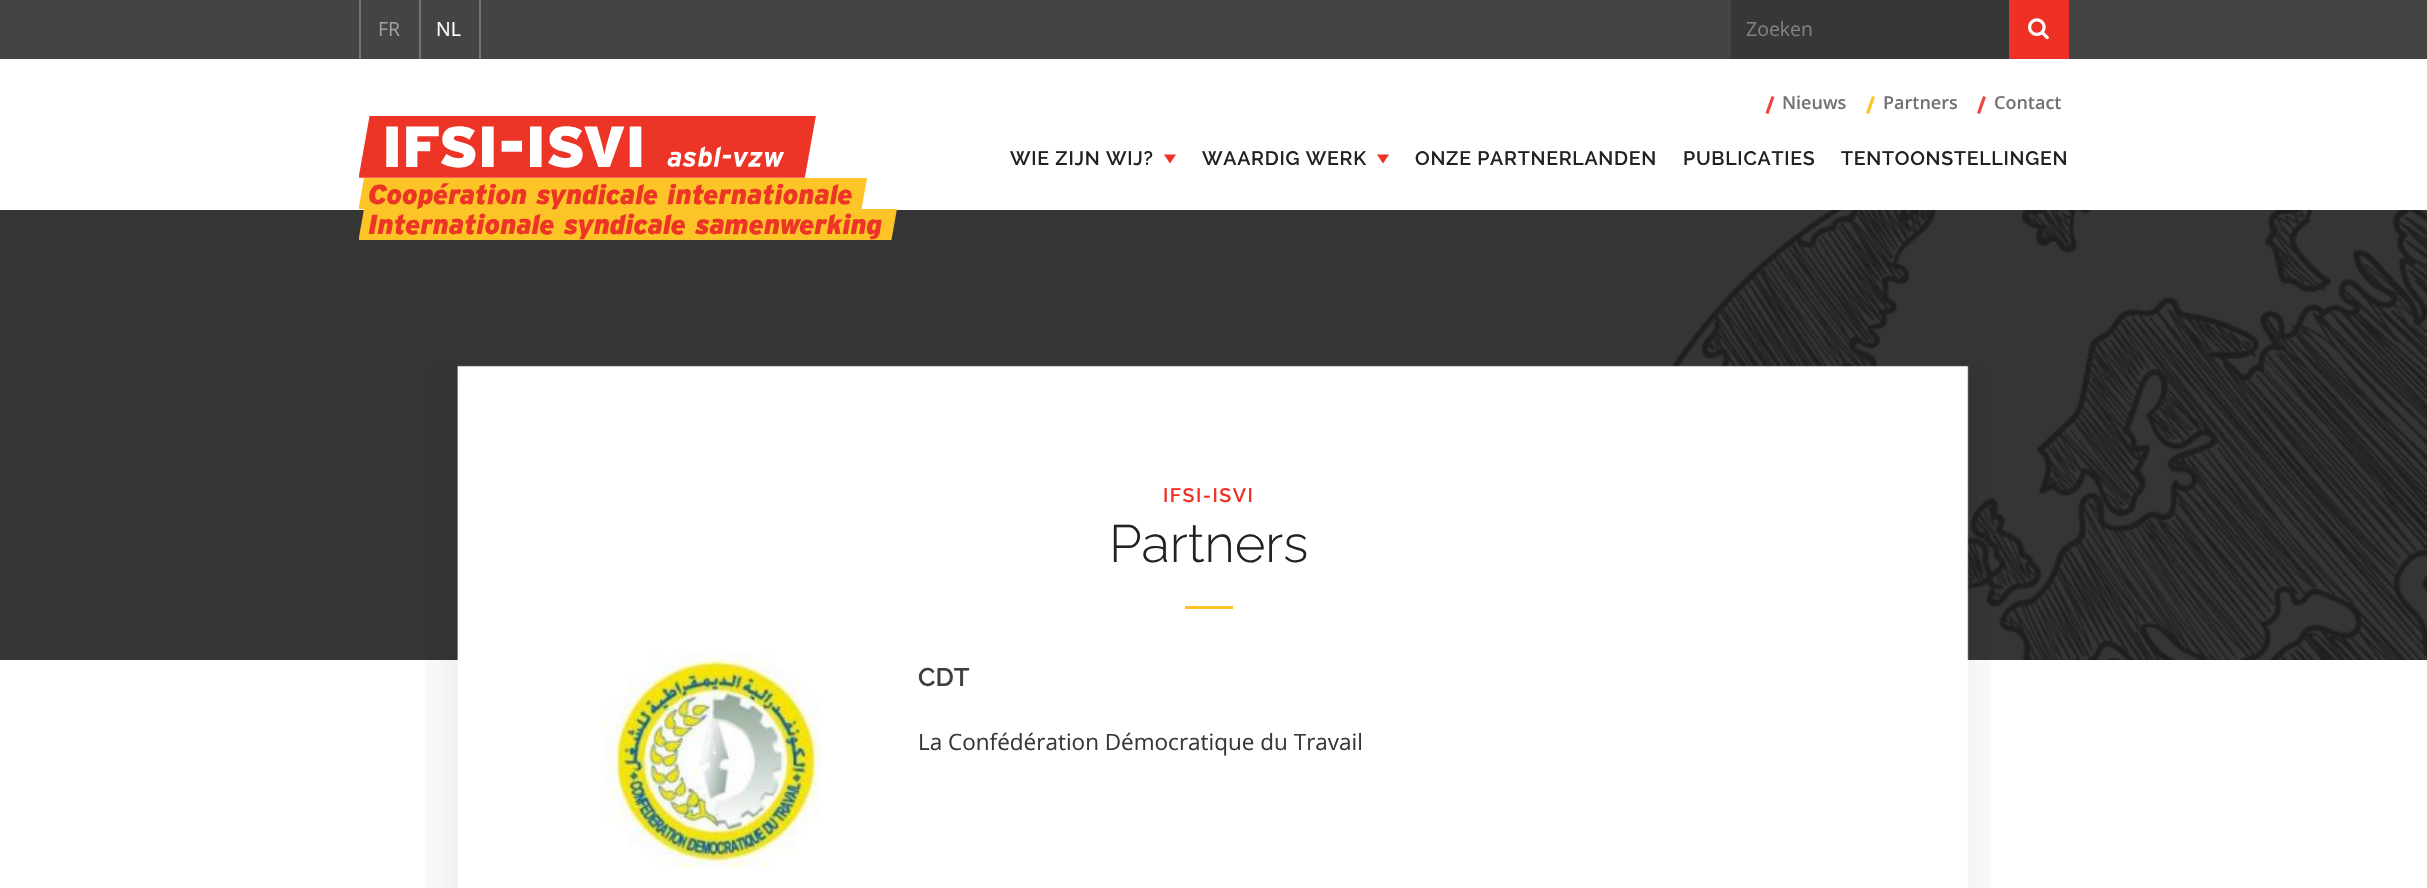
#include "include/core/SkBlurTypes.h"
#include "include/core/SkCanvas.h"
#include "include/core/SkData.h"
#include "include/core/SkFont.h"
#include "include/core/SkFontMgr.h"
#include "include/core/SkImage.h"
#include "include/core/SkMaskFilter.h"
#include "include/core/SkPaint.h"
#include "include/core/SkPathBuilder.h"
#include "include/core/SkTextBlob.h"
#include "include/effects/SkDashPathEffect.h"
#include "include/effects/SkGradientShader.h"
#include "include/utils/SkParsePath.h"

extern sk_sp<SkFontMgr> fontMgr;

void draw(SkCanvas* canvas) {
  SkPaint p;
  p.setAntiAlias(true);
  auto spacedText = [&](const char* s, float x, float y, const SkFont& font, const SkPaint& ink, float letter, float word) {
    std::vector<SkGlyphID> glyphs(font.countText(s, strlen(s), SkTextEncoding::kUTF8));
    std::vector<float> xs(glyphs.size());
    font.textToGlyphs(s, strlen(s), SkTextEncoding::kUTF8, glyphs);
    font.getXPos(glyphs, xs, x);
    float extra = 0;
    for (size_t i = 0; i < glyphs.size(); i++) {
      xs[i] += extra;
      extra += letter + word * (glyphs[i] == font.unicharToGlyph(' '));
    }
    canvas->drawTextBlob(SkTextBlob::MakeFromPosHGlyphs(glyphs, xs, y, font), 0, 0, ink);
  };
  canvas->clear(SK_ColorWHITE);
  p.setColor(SkColorSetRGB(68, 68, 68));
  canvas->drawRect(SkRect::MakeLTRB(0, 0, 2427, 59), p);
  p.setColor(SkColorSetRGB(116, 115, 115));
  canvas->drawRect(SkRect::MakeLTRB(419, 0, 421, 59), p);
  canvas->drawRect(SkRect::MakeLTRB(359, 0, 361, 59), p);
  canvas->drawRect(SkRect::MakeLTRB(479, 0, 481, 59), p);
  p.setColor(SkColorSetRGB(56, 54, 54));
  canvas->drawRect(SkRect::MakeLTRB(1731, 0, 2009, 59), p);
  p.setColor(SkColorSetRGB(238, 49, 36));
  canvas->drawRect(SkRect::MakeLTRB(2009, 0, 2069, 59), p);
  canvas->drawImageRect(SkImages::DeferredFromEncodedData(SkData::MakeFromFileName("images/1.png")), SkRect::MakeLTRB(2028, 18, 2049, 40), SkSamplingOptions());
  p.setColor(SkColorSetRGB(53, 53, 53));
  canvas->drawRect(SkRect::MakeLTRB(0, 210, 2427, 660), p);
  canvas->drawImageRect(SkImages::DeferredFromEncodedData(SkData::MakeFromFileName("images/2.png")), SkRect::MakeLTRB(359, 116, 897, 240), SkSamplingOptions());
  p.setColor(SkColorSetRGB(238, 71, 65));
  canvas->drawPath(SkPathBuilder().moveTo(1771.5f, 96).lineTo(1774.5f, 97).lineTo(1768.5f, 114).lineTo(1765.5f, 113).close().detach(), p);
  p.setColor(SkColorSetRGB(254, 196, 36));
  canvas->drawPath(SkPathBuilder().moveTo(1872, 96).lineTo(1875, 97).lineTo(1869, 114).lineTo(1866, 113).close().detach(), p);
  p.setColor(SkColorSetRGB(238, 71, 65));
  canvas->drawPath(SkPathBuilder().moveTo(1983, 96).lineTo(1986, 97).lineTo(1980, 114).lineTo(1977, 113).close().detach(), p);
  p.setColor(SkColorSetRGB(238, 49, 36));
  canvas->drawPath(SkPathBuilder().moveTo(1164, 154.5f).lineTo(1176, 154.5f).lineTo(1170, 163.5f).close().detach(), p);
  canvas->drawPath(SkPathBuilder().moveTo(1377, 154.5f).lineTo(1389, 154.5f).lineTo(1383, 163.5f).close().detach(), p);
  canvas->drawImageRect(SkImages::DeferredFromEncodedData(SkData::MakeFromFileName("images/3.png")), SkRect::MakeLTRB(1670, 210, 2427, 660), SkSamplingOptions());
  canvas->drawImageRect(SkImages::DeferredFromEncodedData(SkData::MakeFromFileName("images/4.png")), SkRect::MakeLTRB(425, 365, 1991, 888), SkSamplingOptions());
  p.setColor(SkColorSetRGB(254, 196, 35));
  canvas->drawRect(SkRect::MakeLTRB(1185, 606, 1233, 609), p);
  canvas->drawImageRect(SkImages::DeferredFromEncodedData(SkData::MakeFromFileName("images/5.png")), SkRect::MakeLTRB(604, 654, 822, 867), SkSamplingOptions());
  SkFont font1(fontMgr->matchFamilyStyle("Open Sans", SkFontStyle::Normal()), 19.5f);
  font1.setSubpixel(true);
  p.setColor(SkColorSetRGB(159, 159, 159));
  canvas->drawString("FR", 378, 36, font1, p);
  p.setColor(SK_ColorWHITE);
  canvas->drawString("NL", 436, 36, font1, p);
  p.setColor(SkColorSetRGB(129, 128, 128));
  canvas->drawString("Zoeken", 1746, 36, font1, p);
  SkFont font2(fontMgr->matchFamilyStyle("Open Sans", SkFontStyle(600, SkFontStyle::kNormal_Width, SkFontStyle::kUpright_Slant)), 18);
  font2.setSubpixel(true);
  p.setColor(SkColorSetRGB(116, 115, 115));
  canvas->drawString("Nieuws", 1782, 109, font2, p);
  canvas->drawString("Partners", 1883, 109, font2, p);
  canvas->drawString("Contact", 1994, 109, font2, p);
  SkFont font3(fontMgr->matchFamilyStyle("Raleway", SkFontStyle(600, SkFontStyle::kNormal_Width, SkFontStyle::kUpright_Slant)), 19.5f);
  font3.setSubpixel(true);
  p.setColor(SkColorSetRGB(34, 34, 34));
  spacedText("WIE ZIJN WIJ?", 1010, 165, font3, p, 0.75f, 0);
  spacedText("WAARDIG WERK", 1202, 165, font3, p, 0.75f, 0);
  spacedText("ONZE PARTNERLANDEN", 1415, 165, font3, p, 0.75f, 0);
  spacedText("PUBLICATIES", 1683, 165, font3, p, 0.75f, 0);
  spacedText("TENTOONSTELLINGEN", 1841, 165, font3, p, 0.75f, 0);
  p.setColor(SkColorSetRGB(238, 49, 36));
  spacedText("IFSI-ISVI", 1163, 502, font3, p, 1.5f, 0);
  SkFont font4(fontMgr->matchFamilyStyle("Raleway", SkFontStyle(300, SkFontStyle::kNormal_Width, SkFontStyle::kUpright_Slant)), 52.5f);
  font4.setSubpixel(true);
  p.setColor(SkColorSetRGB(34, 34, 34));
  canvas->drawString("Partners", 1109, 562, font4, p);
  SkFont font5(fontMgr->matchFamilyStyle("Raleway", SkFontStyle(600, SkFontStyle::kNormal_Width, SkFontStyle::kUpright_Slant)), 25.5f);
  font5.setSubpixel(true);
  p.setColor(SkColorSetRGB(63, 63, 63));
  canvas->drawString("CDT", 918, 686, font5, p);
  SkFont font6(fontMgr->matchFamilyStyle("Open Sans", SkFontStyle::Normal()), 22.5f);
  font6.setSubpixel(true);
  p.setColor(SkColorSetRGB(57, 56, 57));
  canvas->drawString("La Confédération Démocratique du Travail", 918, 750, font6, p);
}
